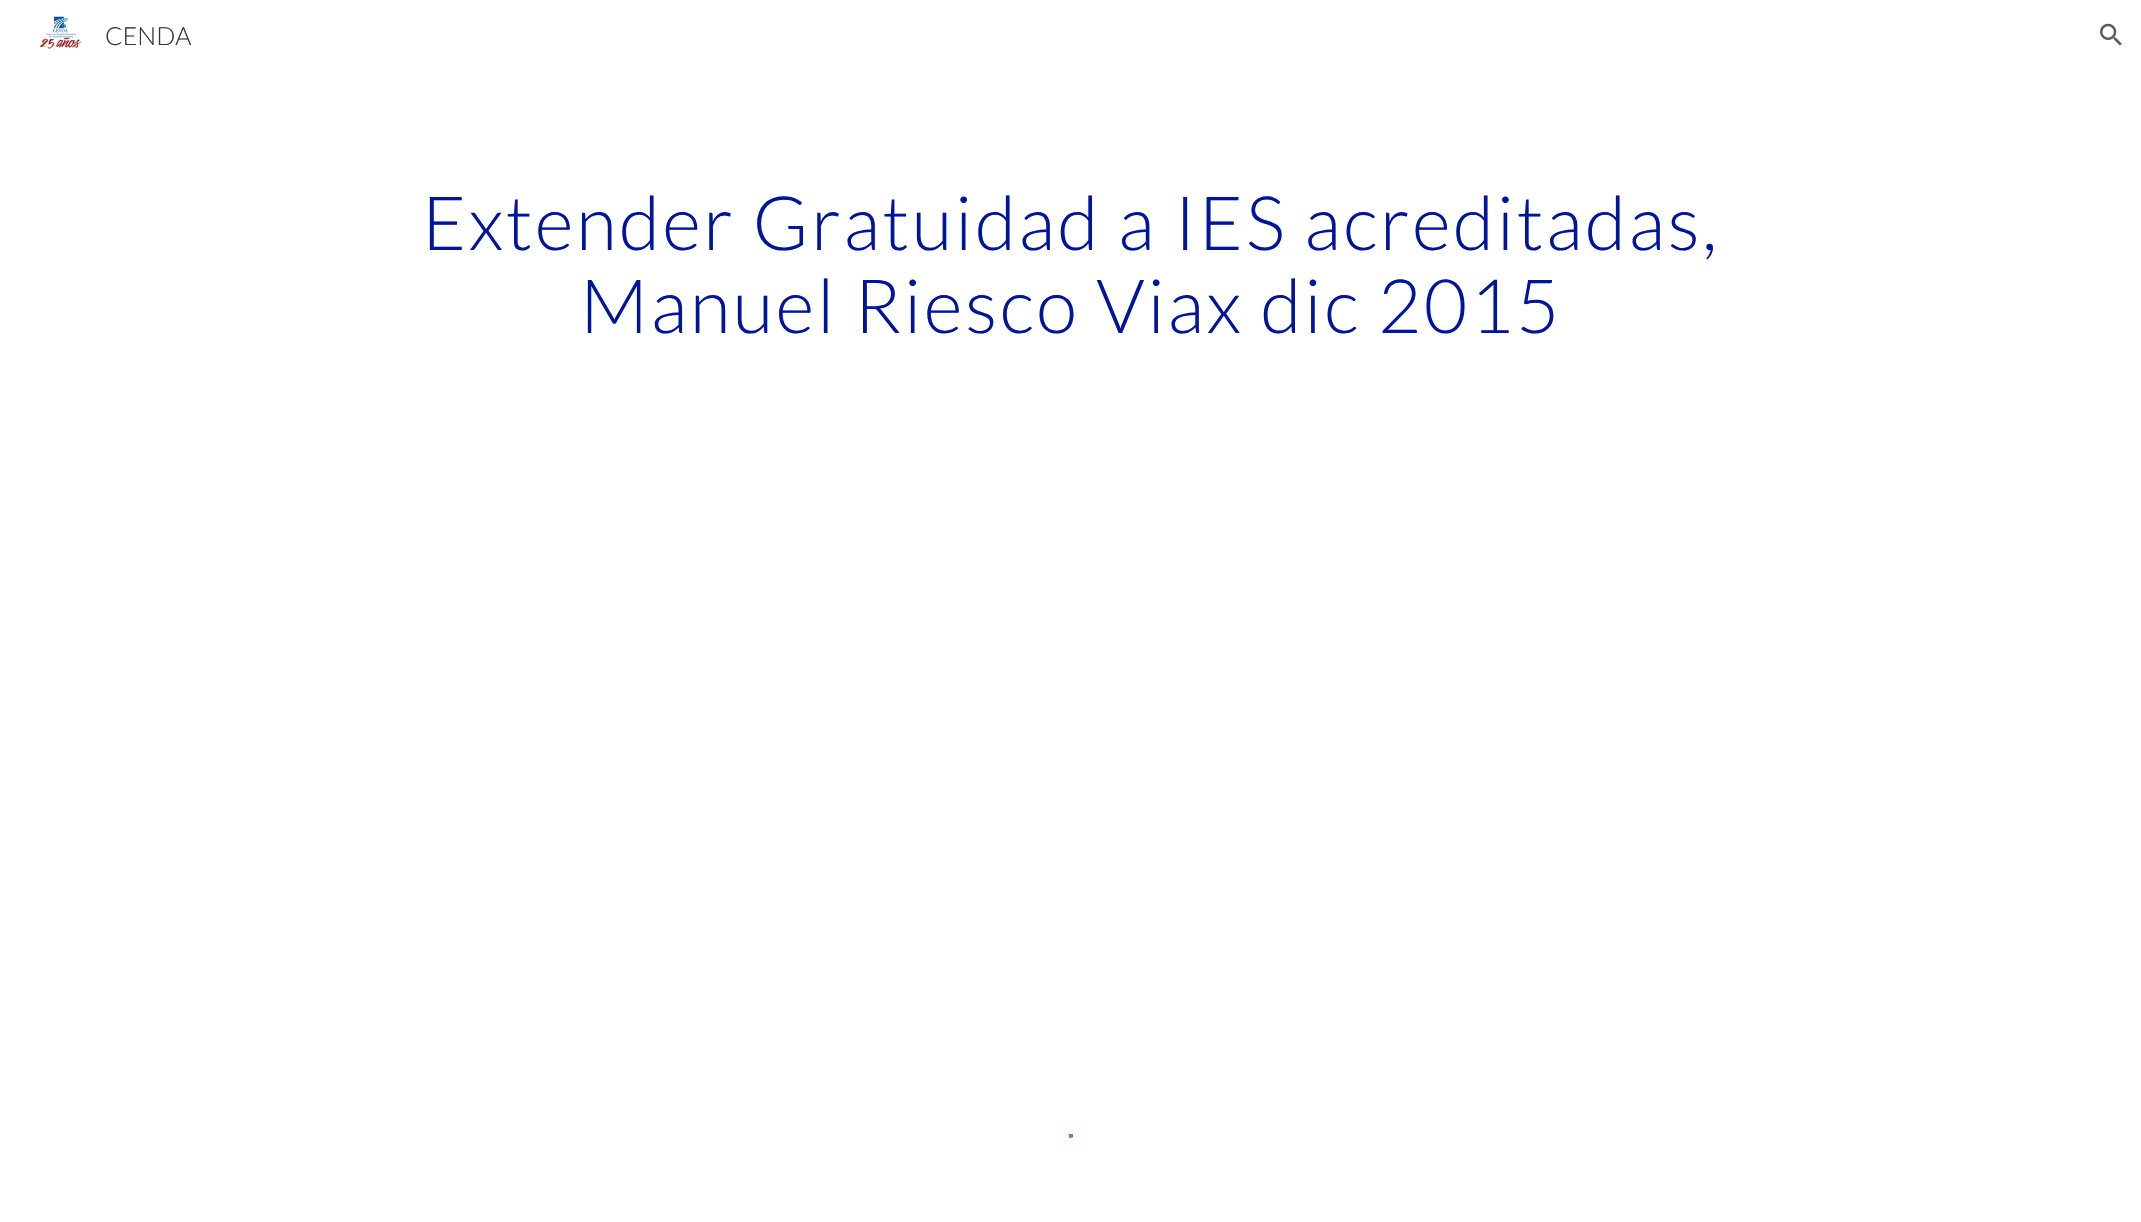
#include "include/core/SkBlurTypes.h"
#include "include/core/SkCanvas.h"
#include "include/core/SkData.h"
#include "include/core/SkFont.h"
#include "include/core/SkFontMgr.h"
#include "include/core/SkImage.h"
#include "include/core/SkMaskFilter.h"
#include "include/core/SkPaint.h"
#include "include/core/SkPathBuilder.h"
#include "include/core/SkTextBlob.h"
#include "include/effects/SkDashPathEffect.h"
#include "include/effects/SkGradientShader.h"
#include "include/utils/SkParsePath.h"

extern sk_sp<SkFontMgr> fontMgr;

void draw(SkCanvas* canvas) {
  SkPaint p;
  p.setAntiAlias(true);
  auto spacedText = [&](const char* s, float x, float y, const SkFont& font, const SkPaint& ink, float letter, float word) {
    std::vector<SkGlyphID> glyphs(font.countText(s, strlen(s), SkTextEncoding::kUTF8));
    std::vector<float> xs(glyphs.size());
    font.textToGlyphs(s, strlen(s), SkTextEncoding::kUTF8, glyphs);
    font.getXPos(glyphs, xs, x);
    float extra = 0;
    for (size_t i = 0; i < glyphs.size(); i++) {
      xs[i] += extra;
      extra += letter + word * (glyphs[i] == font.unicharToGlyph(' '));
    }
    canvas->drawTextBlob(SkTextBlob::MakeFromPosHGlyphs(glyphs, xs, y, font), 0, 0, ink);
  };
  canvas->clear(SK_ColorWHITE);
  canvas->drawImageRect(SkImages::DeferredFromEncodedData(SkData::MakeFromFileName("images/1.png")), SkRect::MakeLTRB(40, 16, 82, 49), SkSamplingOptions());
  canvas->drawImageRect(SkImages::DeferredFromEncodedData(SkData::MakeFromFileName("images/2.png")), SkRect::MakeLTRB(2100, 23, 2122, 46), SkSamplingOptions());
  canvas->save();
  canvas->clipRect(SkRect::MakeLTRB(1053, 1134, 1070, 1169));
  p.setStyle(SkPaint::kStroke_Style);
  p.setStrokeWidth(3.7f);
  p.setColor(SkColorSetRGB(68, 134, 244));
  canvas->drawPath(SkPathBuilder().moveTo(1069, 1135.5f).cubicTo(1072.5f, 1135, 1075.5f, 1135.5f, 1078, 1137).cubicTo(1091.5f, 1144.5f, 1087, 1165, 1072, 1166.5f).detach(), p);
  canvas->restore();
  canvas->save();
  canvas->clipRect(SkRect::MakeLTRB(1069, 1134, 1073, 1169));
  p.setStrokeWidth(3.8f);
  canvas->drawPath(SkPathBuilder().moveTo(1060, 1162.5f).cubicTo(1056.5f, 1158.5f, 1055, 1153, 1056, 1148).cubicTo(1056.5f, 1144, 1059, 1140.5f, 1062.5f, 1138.5f).cubicTo(1077.5f, 1127.5f, 1093.5f, 1149.5f, 1081, 1162.5f).detach(), p);
  canvas->restore();
  canvas->save();
  canvas->clipRect(SkRect::MakeLTRB(1070, 1134, 1088, 1169));
  p.setStrokeWidth(3.7f);
  canvas->drawPath(SkPathBuilder().moveTo(1069, 1166.5f).cubicTo(1054, 1165, 1049.5f, 1144.5f, 1063, 1137).cubicTo(1066, 1135.5f, 1069, 1135, 1072, 1135.5f).detach(), p);
  canvas->restore();
  canvas->save();
  canvas->clipRect(SkRect::MakeLTRB(1053, 1134, 1070, 1169));
  canvas->drawPath(SkPathBuilder().moveTo(1069, 1135.5f).cubicTo(1072.5f, 1135, 1075.5f, 1135.5f, 1078, 1137).cubicTo(1091.5f, 1144.5f, 1087, 1165, 1072, 1166.5f).detach(), p);
  canvas->restore();
  canvas->save();
  canvas->clipRect(SkRect::MakeLTRB(1070, 1134, 1088, 1169));
  canvas->drawPath(SkPathBuilder().moveTo(1069, 1166.5f).cubicTo(1054, 1165, 1049.5f, 1144.5f, 1063, 1137).cubicTo(1066, 1135.5f, 1069, 1135, 1072, 1135.5f).detach(), p);
  canvas->restore();
  canvas->save();
  canvas->clipRect(SkRect::MakeLTRB(1053, 1134, 1070, 1169));
  canvas->drawPath(SkPathBuilder().moveTo(1069, 1135.5f).cubicTo(1072.5f, 1135, 1075.5f, 1135.5f, 1078, 1137).cubicTo(1091.5f, 1144.5f, 1087, 1165, 1072, 1166.5f).detach(), p);
  canvas->restore();
  canvas->save();
  canvas->clipRect(SkRect::MakeLTRB(1070, 1134, 1088, 1169));
  canvas->drawPath(SkPathBuilder().moveTo(1069, 1166.5f).cubicTo(1054, 1165, 1049.5f, 1144.5f, 1063, 1137).cubicTo(1066, 1135.5f, 1069, 1135, 1072, 1135.5f).detach(), p);
  canvas->restore();
  canvas->save();
  canvas->clipRect(SkRect::MakeLTRB(1053, 1134, 1070, 1169));
  canvas->drawPath(SkPathBuilder().moveTo(1069, 1135.5f).cubicTo(1072.5f, 1135, 1075.5f, 1135.5f, 1078, 1137).cubicTo(1091.5f, 1144.5f, 1087, 1165, 1072, 1166.5f).detach(), p);
  canvas->restore();
  canvas->save();
  canvas->clipRect(SkRect::MakeLTRB(1070, 1134, 1088, 1169));
  canvas->drawPath(SkPathBuilder().moveTo(1069, 1166.5f).cubicTo(1054, 1165, 1049.5f, 1144.5f, 1063, 1137).cubicTo(1066, 1135.5f, 1069, 1135, 1072, 1135.5f).detach(), p);
  canvas->restore();
  SkFont font1(fontMgr->matchFamilyStyle("Lato", SkFontStyle(300, SkFontStyle::kNormal_Width, SkFontStyle::kUpright_Slant)), 25);
  font1.setSubpixel(true);
  p.setStyle(SkPaint::kFill_Style);
  p.setColor(SkColorSetRGB(51, 51, 51));
  canvas->drawString("CENDA", 105, 45, font1, p);
  SkFont font2(fontMgr->matchFamilyStyle("Lato", SkFontStyle(300, SkFontStyle::kNormal_Width, SkFontStyle::kUpright_Slant)), 75);
  font2.setSubpixel(true);
  p.setColor(SkColorSetRGB(1, 20, 158));
  spacedText("Extender Gratuidad a IES acreditadas,", 422, 250, font2, p, 2.5f, 0);
  spacedText("Manuel Riesco Viax dic 2015", 580, 333, font2, p, 2.5f, 0);
}
